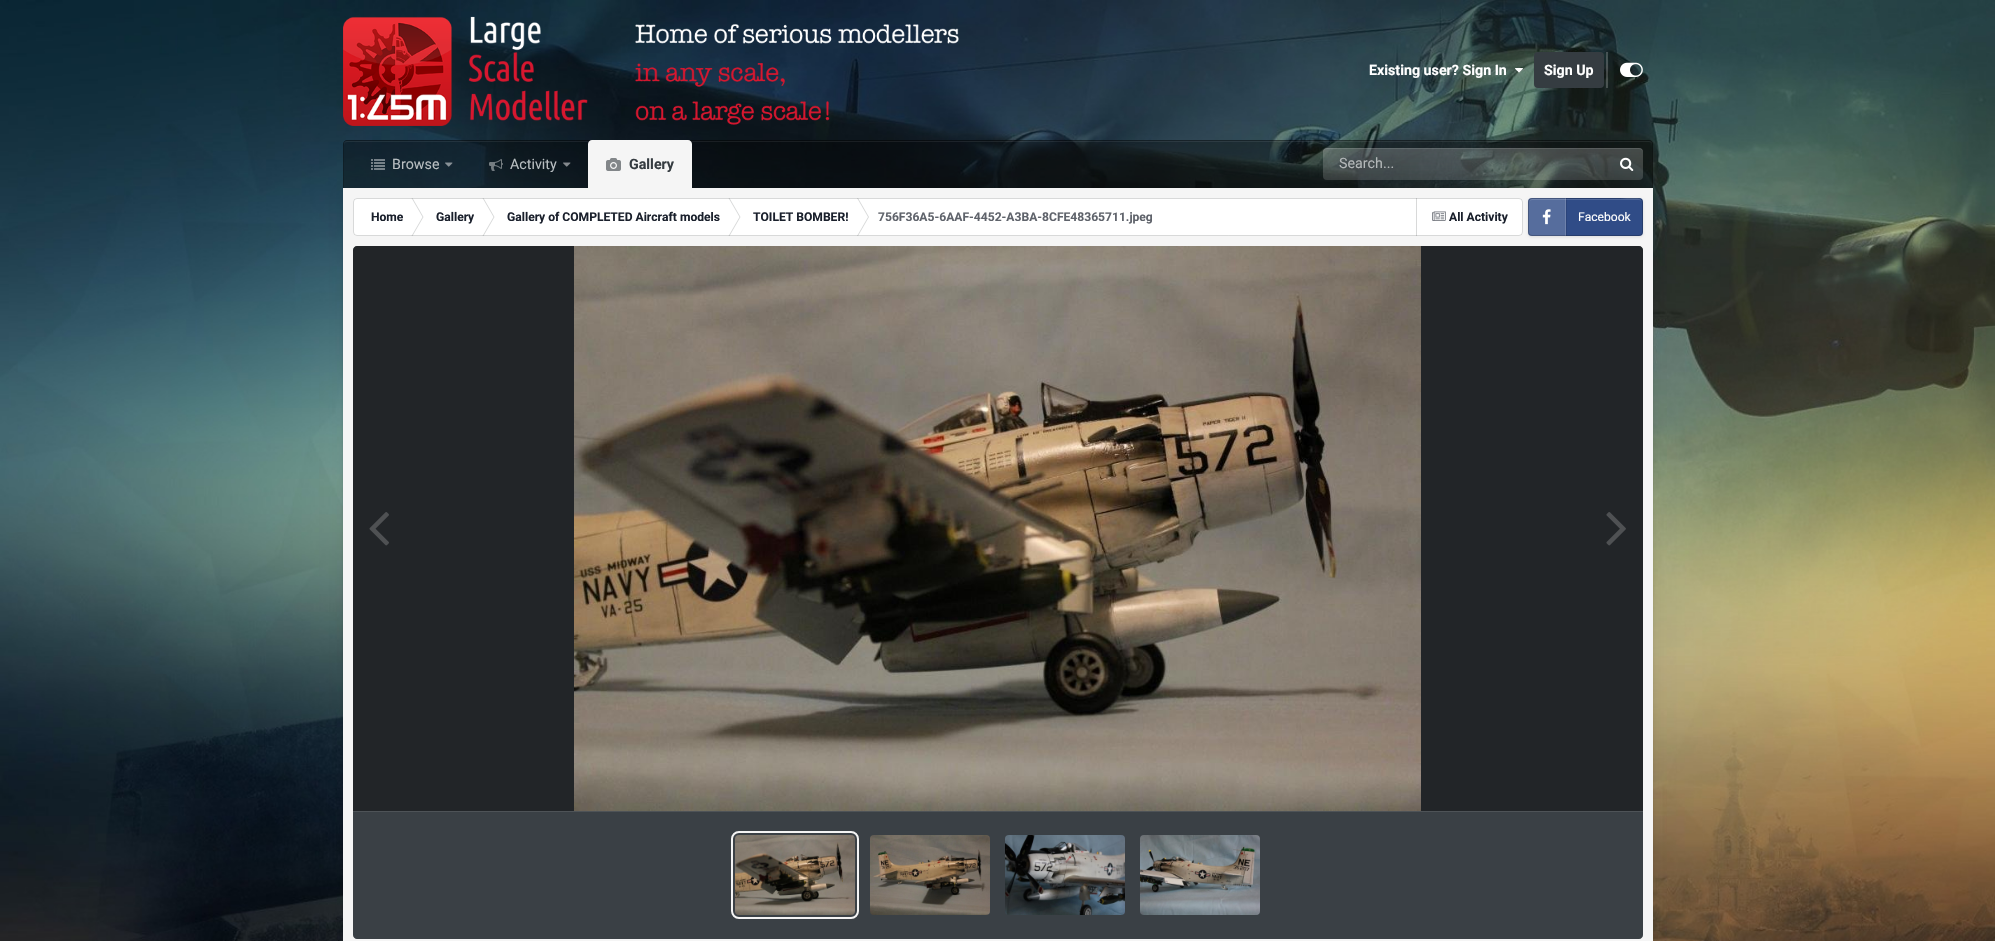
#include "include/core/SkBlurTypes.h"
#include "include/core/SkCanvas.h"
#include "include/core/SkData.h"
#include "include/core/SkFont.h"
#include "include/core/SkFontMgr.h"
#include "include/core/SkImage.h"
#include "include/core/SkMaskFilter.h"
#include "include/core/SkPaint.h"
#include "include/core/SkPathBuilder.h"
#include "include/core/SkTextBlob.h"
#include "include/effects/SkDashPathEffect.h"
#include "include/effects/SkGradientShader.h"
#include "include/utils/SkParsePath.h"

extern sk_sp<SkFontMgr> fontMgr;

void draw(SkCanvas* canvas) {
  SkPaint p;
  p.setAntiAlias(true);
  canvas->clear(SK_ColorWHITE);
  canvas->drawImageRect(SkImages::DeferredFromEncodedData(SkData::MakeFromFileName("images/1.png")), SkRect::MakeLTRB(0, 0, 1995, 941), SkSamplingOptions());
  canvas->drawImageRect(SkImages::DeferredFromEncodedData(SkData::MakeFromFileName("images/2.png")), SkRect::MakeLTRB(343, 16, 959, 126), SkSamplingOptions());
  canvas->drawImageRect(SkImages::DeferredFromEncodedData(SkData::MakeFromFileName("images/3.png")), SkRect::MakeLTRB(1515, 68, 1523, 73), SkSamplingOptions());
  p.setColor(SkColorSetRGB(53, 60, 65));
  canvas->drawRoundRect(SkRect::MakeLTRB(1534, 52, 1604, 88), 4, 4, p);
  p.setColor(SkColorSetARGB(51, 255, 255, 255));
  canvas->drawRect(SkRect::MakeLTRB(1606, 52, 1608, 88), p);
  canvas->drawImageRect(SkImages::DeferredFromEncodedData(SkData::MakeFromFileName("images/4.png")), SkRect::MakeLTRB(1620, 62, 1643, 77), SkSamplingOptions());
  p.setColor(SkColorSetARGB(20, 0, 0, 0));
  p.setMaskFilter(SkMaskFilter::MakeBlur(kNormal_SkBlurStyle, 1.5f));
  canvas->drawRoundRect(SkRect::MakeLTRB(343, 189, 1653, 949), 3, 3, p);
  p.setMaskFilter(nullptr);
  p.setColor(SkColorSetARGB(15, 0, 0, 0));
  p.setMaskFilter(SkMaskFilter::MakeBlur(kNormal_SkBlurStyle, 10));
  canvas->drawRoundRect(SkRect::MakeLTRB(343, 188, 1653, 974), 3, 3, p);
  p.setMaskFilter(nullptr);
  p.setColor(SkColorSetARGB(102, 0, 0, 0));
  canvas->drawPath(SkPathBuilder().moveTo(347, 140).lineTo(1649, 140).cubicTo(1651, 140, 1653, 142, 1653, 144).lineTo(1653, 188).lineTo(343, 188).lineTo(343, 144).cubicTo(343, 142, 345, 140, 347, 140).close().detach(), p);
  p.setColor(SkColorSetARGB(18, 255, 255, 255));
  canvas->drawPath(SkPathBuilder().moveTo(347, 142).lineTo(1649, 142).cubicTo(1651, 142, 1652, 143, 1652, 145).lineTo(1652, 144).cubicTo(1652, 142, 1651, 141, 1649, 141).lineTo(347, 141).cubicTo(345, 141, 344, 142, 344, 144).lineTo(344, 145).cubicTo(344, 143, 345, 142, 347, 142).close().detach(), p);
  p.setColor(SkColorSetARGB(51, 0, 0, 0));
  canvas->drawPath(SkPathBuilder(SkPathFillType::kEvenOdd).moveTo(347, 140).lineTo(1649, 140).cubicTo(1651, 140, 1653, 142, 1653, 144).lineTo(1653, 188).lineTo(343, 188).lineTo(343, 144).cubicTo(343, 142, 345, 140, 347, 140).close().moveTo(347, 141).lineTo(1649, 141).cubicTo(1651, 141, 1652, 142, 1652, 144).lineTo(1652, 188).lineTo(344, 188).lineTo(344, 144).cubicTo(344, 142, 345, 141, 347, 141).close().detach(), p);
  canvas->drawImageRect(SkImages::DeferredFromEncodedData(SkData::MakeFromFileName("images/5.png")), SkRect::MakeLTRB(371, 159, 385, 170), SkSamplingOptions());
  canvas->drawImageRect(SkImages::DeferredFromEncodedData(SkData::MakeFromFileName("images/6.png")), SkRect::MakeLTRB(445, 162, 453, 167), SkSamplingOptions());
  canvas->drawImageRect(SkImages::DeferredFromEncodedData(SkData::MakeFromFileName("images/7.png")), SkRect::MakeLTRB(489, 159, 503, 171), SkSamplingOptions());
  canvas->drawImageRect(SkImages::DeferredFromEncodedData(SkData::MakeFromFileName("images/8.png")), SkRect::MakeLTRB(563, 162, 571, 167), SkSamplingOptions());
  p.setColor(SkColorSetRGB(245, 245, 245));
  canvas->drawPath(SkPathBuilder().moveTo(592, 140).lineTo(688, 140).cubicTo(690, 140, 692, 142, 692, 144).lineTo(692, 188).lineTo(588, 188).lineTo(588, 144).cubicTo(588, 142, 590, 140, 592, 140).close().detach(), p);
  canvas->drawImageRect(SkImages::DeferredFromEncodedData(SkData::MakeFromFileName("images/9.png")), SkRect::MakeLTRB(606, 158, 621, 171), SkSamplingOptions());
  p.setColor(SkColorSetARGB(38, 255, 255, 255));
  canvas->drawRoundRect(SkRect::MakeLTRB(1323, 148, 1643, 180), 4, 4, p);
  {
    const SkColor colors[] = {SkColorSetARGB(20, 255, 255, 255), SkColorSetARGB(0, 255, 255, 255)};
    const float stops[] = {0, 1};
    const SkPoint ends[] = {{1483, 148}, {1483, 180}};
    p.setShader(SkGradientShader::MakeLinear(ends, colors, stops, 2, SkTileMode::kClamp));
    p.setAlpha(255);
  }
  canvas->drawRoundRect(SkRect::MakeLTRB(1323, 148, 1643, 180), 4, 4, p);
  p.setShader(nullptr);
  p.setColor(SkColorSetARGB(26, 255, 255, 255));
  canvas->drawPath(SkPathBuilder().moveTo(1327, 149).lineTo(1639, 149).cubicTo(1641, 149, 1643, 151, 1643, 153).lineTo(1643, 152).cubicTo(1643, 150, 1641, 148, 1639, 148).lineTo(1327, 148).cubicTo(1325, 148, 1323, 150, 1323, 152).lineTo(1323, 153).cubicTo(1323, 151, 1325, 149, 1327, 149).close().detach(), p);
  canvas->drawImageRect(SkImages::DeferredFromEncodedData(SkData::MakeFromFileName("images/10.png")), SkRect::MakeLTRB(1620, 157, 1634, 171), SkSamplingOptions());
  p.setColor(SkColorSetRGB(245, 245, 245));
  canvas->drawRect(SkRect::MakeLTRB(343, 188, 1653, 941), p);
  p.setColor(SK_ColorWHITE);
  canvas->drawRoundRect(SkRect::MakeLTRB(353, 198, 1523, 236), 4, 4, p);
  p.setColor(SkColorSetRGB(216, 217, 217));
  canvas->drawPath(SkPathBuilder().moveTo(411.5f, 198).lineTo(412.5f, 198).lineTo(423.5f, 217).lineTo(422.5f, 217).close().moveTo(411.5f, 236).lineTo(412.5f, 236).lineTo(423.5f, 217).lineTo(422.5f, 217).close().detach(), p);
  canvas->drawPath(SkPathBuilder().moveTo(482.5f, 198).lineTo(483.5f, 198).lineTo(494.5f, 217).lineTo(493.5f, 217).close().moveTo(482.5f, 236).lineTo(483.5f, 236).lineTo(494.5f, 217).lineTo(493.5f, 217).close().detach(), p);
  canvas->drawPath(SkPathBuilder().moveTo(728.5f, 198).lineTo(729.5f, 198).lineTo(740.5f, 217).lineTo(739.5f, 217).close().moveTo(728.5f, 236).lineTo(729.5f, 236).lineTo(740.5f, 217).lineTo(739.5f, 217).close().detach(), p);
  canvas->drawPath(SkPathBuilder().moveTo(857, 198).lineTo(858, 198).lineTo(869, 217).lineTo(868, 217).close().moveTo(857, 236).lineTo(858, 236).lineTo(869, 217).lineTo(868, 217).close().detach(), p);
  canvas->drawRect(SkRect::MakeLTRB(1416, 198, 1417, 236), p);
  canvas->drawImageRect(SkImages::DeferredFromEncodedData(SkData::MakeFromFileName("images/11.png")), SkRect::MakeLTRB(1432, 211, 1446, 221), SkSamplingOptions());
  p.setStyle(SkPaint::kStroke_Style);
  p.setStrokeWidth(1);
  p.setColor(SkColorSetARGB(51, 59, 64, 67));
  canvas->drawRoundRect(SkRect::MakeLTRB(353.5f, 198.5f, 1522.5f, 235.5f), 3.5f, 3.5f, p);
  p.setStyle(SkPaint::kFill_Style);
  p.setColor(SkColorSetARGB(26, 0, 0, 0));
  p.setMaskFilter(SkMaskFilter::MakeBlur(kNormal_SkBlurStyle, 1.5f));
  canvas->drawRoundRect(SkRect::MakeLTRB(1528, 199, 1643, 237), 4, 4, p);
  p.setMaskFilter(nullptr);
  p.setColor(SkColorSetRGB(48, 76, 135));
  canvas->drawRoundRect(SkRect::MakeLTRB(1528, 198, 1643, 236), 4, 4, p);
  p.setColor(SkColorSetRGB(43, 68, 122));
  canvas->drawRect(SkRect::MakeLTRB(1566, 198, 1567, 236), p);
  p.setColor(SkColorSetARGB(46, 255, 255, 255));
  canvas->drawPath(SkPathBuilder().moveTo(1532, 198).lineTo(1566, 198).lineTo(1566, 236).lineTo(1532, 236).cubicTo(1530, 236, 1528, 234, 1528, 232).lineTo(1528, 202).cubicTo(1528, 200, 1530, 198, 1532, 198).close().detach(), p);
  p.setColor(SkColorSetRGB(111, 130, 171));
  canvas->drawRect(SkRect::MakeLTRB(1565, 198, 1566, 236), p);
  p.setColor(SkColorSetARGB(38, 255, 255, 255));
  canvas->drawPath(SkPathBuilder().moveTo(1532, 200).cubicTo(1530, 200, 1529, 201, 1529, 203).cubicTo(1529, 201, 1530, 199, 1532, 199).lineTo(1621, 199).cubicTo(1623, 199, 1642, 194, 1642, 203).cubicTo(1642, 201, 1641, 200, 1639, 200).close().detach(), p);
  canvas->drawImageRect(SkImages::DeferredFromEncodedData(SkData::MakeFromFileName("images/12.png")), SkRect::MakeLTRB(1542, 209, 1551, 225), SkSamplingOptions());
  p.setStyle(SkPaint::kStroke_Style);
  p.setColor(SkColorSetARGB(51, 0, 0, 0));
  canvas->drawRoundRect(SkRect::MakeLTRB(1528.5f, 198.5f, 1642.5f, 235.5f), 3.5f, 3.5f, p);
  p.setStyle(SkPaint::kFill_Style);
  p.setColor(SkColorSetRGB(83, 92, 98));
  canvas->drawPath(SkPathBuilder().moveTo(357, 246).lineTo(1639, 246).cubicTo(1641, 246, 1643, 248, 1643, 250).lineTo(1643, 811).lineTo(353, 811).lineTo(353, 250).cubicTo(353, 248, 355, 246, 357, 246).close().detach(), p);
  p.setColor(SkColorSetARGB(153, 0, 0, 0));
  canvas->drawPath(SkPathBuilder().moveTo(357, 246).lineTo(1639, 246).cubicTo(1641, 246, 1643, 248, 1643, 250).lineTo(1643, 811).lineTo(353, 811).lineTo(353, 250).cubicTo(353, 248, 355, 246, 357, 246).close().detach(), p);
  canvas->drawImageRect(SkImages::DeferredFromEncodedData(SkData::MakeFromFileName("images/13.png")), SkRect::MakeLTRB(574, 246, 1421, 811), SkSamplingOptions());
  canvas->drawImageRect(SkImages::DeferredFromEncodedData(SkData::MakeFromFileName("images/14.png")), SkRect::MakeLTRB(369, 512, 389, 546), SkSamplingOptions());
  canvas->drawImageRect(SkImages::DeferredFromEncodedData(SkData::MakeFromFileName("images/15.png")), SkRect::MakeLTRB(1606, 512, 1626, 546), SkSamplingOptions());
  p.setColor(SkColorSetRGB(83, 92, 98));
  canvas->drawPath(SkPathBuilder().moveTo(353, 811).lineTo(1643, 811).lineTo(1643, 935).cubicTo(1643, 937, 1641, 939, 1639, 939).lineTo(357, 939).cubicTo(355, 939, 353, 937, 353, 935).close().detach(), p);
  p.setColor(SkColorSetARGB(77, 0, 0, 0));
  canvas->drawPath(SkPathBuilder().moveTo(353, 811).lineTo(1643, 811).lineTo(1643, 935).cubicTo(1643, 937, 1641, 939, 1639, 939).lineTo(357, 939).cubicTo(355, 939, 353, 937, 353, 935).close().detach(), p);
  p.setColor(SkColorSetRGB(78, 83, 87));
  canvas->drawRect(SkRect::MakeLTRB(353, 811, 1643, 812), p);
  p.setStyle(SkPaint::kStroke_Style);
  p.setStrokeWidth(2);
  p.setColor(SkColorSetRGB(244, 244, 244));
  canvas->drawRoundRect(SkRect::MakeLTRB(732, 832, 858, 918), 7, 7, p);
  canvas->drawImageRect(SkImages::DeferredFromEncodedData(SkData::MakeFromFileName("images/16.png")), SkRect::MakeLTRB(735, 835, 855, 915), SkSamplingOptions());
  canvas->drawImageRect(SkImages::DeferredFromEncodedData(SkData::MakeFromFileName("images/17.png")), SkRect::MakeLTRB(870, 835, 990, 915), SkSamplingOptions());
  canvas->drawImageRect(SkImages::DeferredFromEncodedData(SkData::MakeFromFileName("images/18.png")), SkRect::MakeLTRB(1005, 835, 1125, 915), SkSamplingOptions());
  canvas->drawImageRect(SkImages::DeferredFromEncodedData(SkData::MakeFromFileName("images/19.png")), SkRect::MakeLTRB(1140, 835, 1260, 915), SkSamplingOptions());
  SkFont font1(fontMgr->matchFamilyStyle("Roboto", SkFontStyle::Bold()), 14.25f);
  font1.setSubpixel(true);
  p.setStyle(SkPaint::kFill_Style);
  p.setColor(SK_ColorWHITE);
  canvas->drawString("Existing user? Sign In", 1369, 75, font1, p);
  canvas->drawString("Sign Up", 1544, 75, font1, p);
  SkFont font2(fontMgr->matchFamilyStyle("Roboto", SkFontStyle::Normal()), 14.25f);
  font2.setSubpixel(true);
  p.setColor(SkColorSetRGB(184, 190, 193));
  canvas->drawString("Browse", 392, 169, font2, p);
  canvas->drawString("Activity", 510, 169, font2, p);
  p.setColor(SkColorSetRGB(53, 60, 65));
  canvas->drawString("Gallery", 629, 169, font1, p);
  p.setColor(SkColorSetRGB(180, 184, 185));
  canvas->drawString("Search...", 1339, 168, font2, p);
  SkFont font3(fontMgr->matchFamilyStyle("Roboto", SkFontStyle::Bold()), 12.1f);
  font3.setSubpixel(true);
  p.setColor(SkColorSetRGB(26, 32, 44));
  canvas->drawString("Home", 371, 221, font3, p);
  canvas->drawString("Gallery", 436, 221, font3, p);
  canvas->drawString("Gallery of COMPLETED Aircraft models", 507, 221, font3, p);
  canvas->drawString("TOILET BOMBER!", 753, 221, font3, p);
  p.setColor(SkColorSetRGB(95, 99, 107));
  canvas->drawString("756F36A5-6AAF-4452-A3BA-8CFE48365711.jpeg", 878, 221, font3, p);
  p.setColor(SkColorSetRGB(26, 32, 44));
  canvas->drawString("All Activity", 1449, 221, font3, p);
  SkFont font4(fontMgr->matchFamilyStyle("Roboto", SkFontStyle::Normal()), 12.1f);
  font4.setSubpixel(true);
  p.setColor(SK_ColorWHITE);
  canvas->drawString("Facebook", 1578, 221, font4, p);
}
